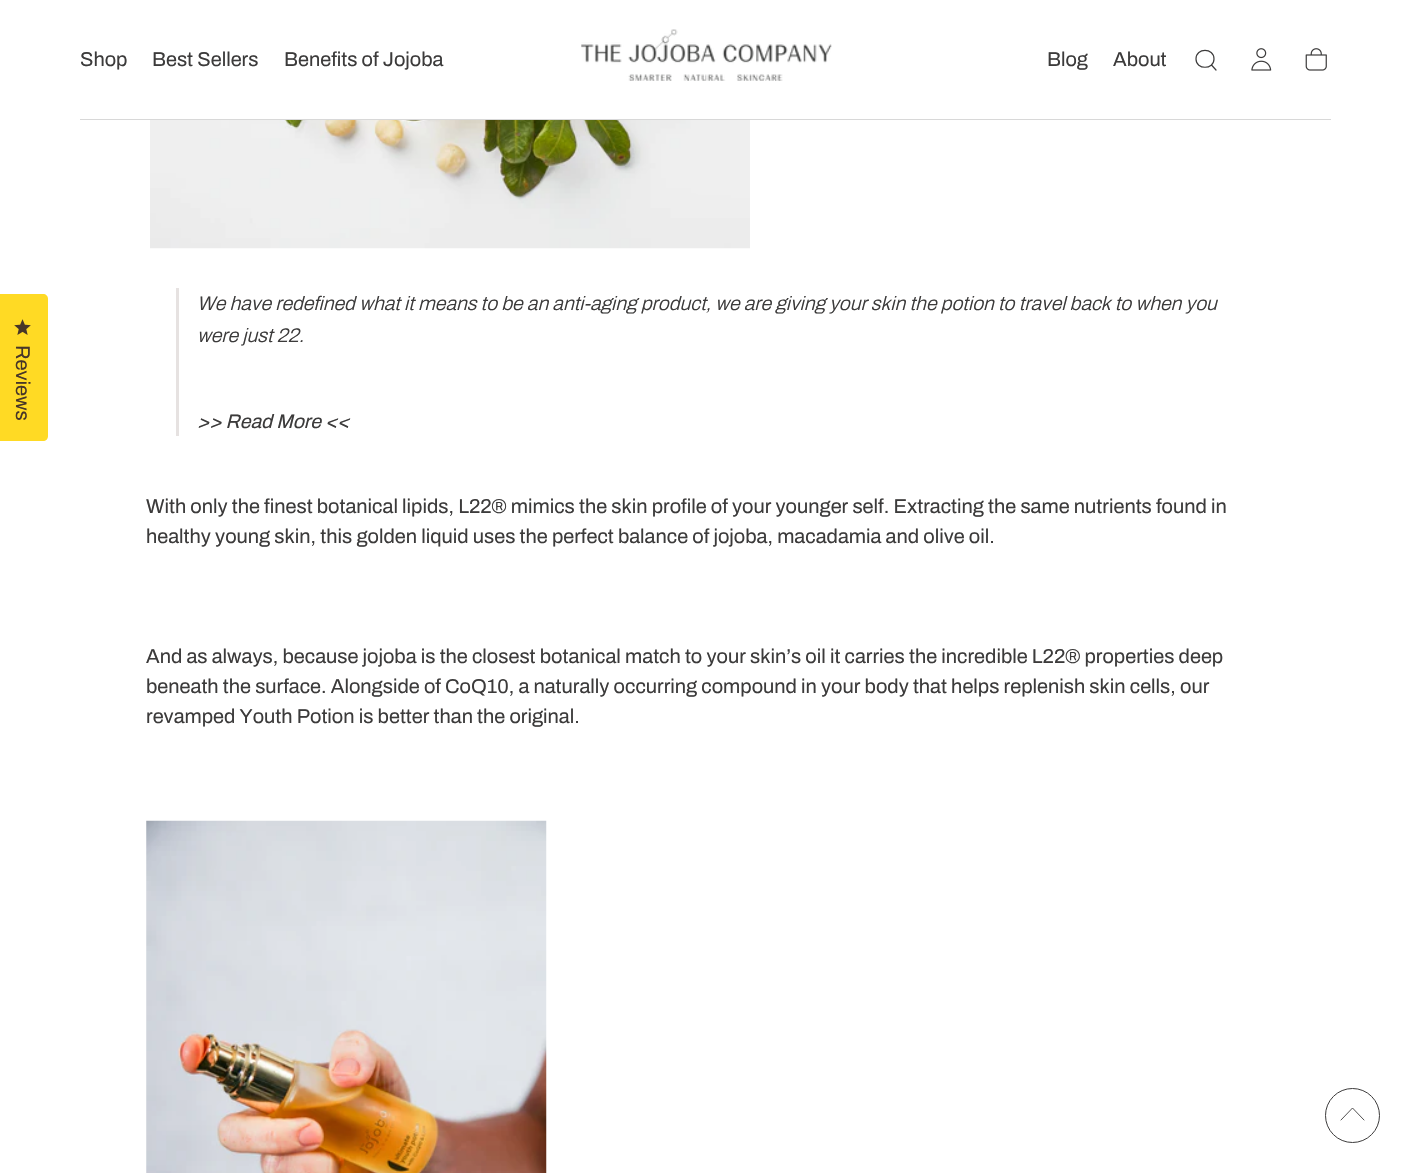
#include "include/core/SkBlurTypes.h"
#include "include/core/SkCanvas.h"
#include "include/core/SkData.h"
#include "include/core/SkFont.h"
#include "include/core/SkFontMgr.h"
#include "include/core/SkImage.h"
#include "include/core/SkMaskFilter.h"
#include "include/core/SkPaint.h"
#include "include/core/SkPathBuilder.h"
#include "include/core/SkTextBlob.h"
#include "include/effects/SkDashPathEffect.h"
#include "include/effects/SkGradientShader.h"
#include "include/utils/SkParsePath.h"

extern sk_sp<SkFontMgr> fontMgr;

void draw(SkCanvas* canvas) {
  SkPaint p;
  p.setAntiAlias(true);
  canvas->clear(SK_ColorWHITE);
  canvas->drawImageRect(SkImages::DeferredFromEncodedData(SkData::MakeFromFileName("images/1.png")), SkRect::MakeLTRB(581, 29, 832, 81), SkSamplingOptions());
  p.setStyle(SkPaint::kStroke_Style);
  p.setStrokeWidth(1.2f);
  p.setStrokeCap(SkPaint::kRound_Cap);
  p.setColor(SkColorSetRGB(60, 59, 59));
  canvas->drawPath(SkPathBuilder().moveTo(1216, 70).lineTo(1211.5f, 65).moveTo(1214, 59).cubicTo(1214, 70, 1196, 70, 1196, 59).cubicTo(1196, 47.5f, 1214, 47.5f, 1214, 59).close().detach(), p);
  canvas->drawImageRect(SkImages::DeferredFromEncodedData(SkData::MakeFromFileName("images/2.png")), SkRect::MakeLTRB(1251, 48, 1272, 71), SkSamplingOptions());
  canvas->drawImageRect(SkImages::DeferredFromEncodedData(SkData::MakeFromFileName("images/3.png")), SkRect::MakeLTRB(1305, 48, 1327, 71), SkSamplingOptions());
  p.setStyle(SkPaint::kFill_Style);
  p.setColor(SkColorSetRGB(216, 216, 216));
  canvas->drawRect(SkRect::MakeLTRB(80, 119, 1331, 120), p);
  p.setColor(SkColorSetRGB(255, 218, 36));
  canvas->drawPath(SkPathBuilder().moveTo(-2, 294).lineTo(43, 294).cubicTo(46, 294, 48, 296, 48, 299).lineTo(48, 436).cubicTo(48, 439, 46, 441, 43, 441).lineTo(-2, 441).close().detach(), p);
  canvas->drawImageRect(SkImages::DeferredFromEncodedData(SkData::MakeFromFileName("images/4.png")), SkRect::MakeLTRB(14, 319, 31, 335), SkSamplingOptions());
  canvas->drawImageRect(SkImages::DeferredFromEncodedData(SkData::MakeFromFileName("images/5.png")), SkRect::MakeLTRB(150, 120, 750, 249), SkSamplingOptions());
  p.setColor(SkColorSetRGB(230, 226, 225));
  canvas->drawRect(SkRect::MakeLTRB(176, 288, 179, 436), p);
  canvas->drawImageRect(SkImages::DeferredFromEncodedData(SkData::MakeFromFileName("images/6.png")), SkRect::MakeLTRB(146, 820, 547, 1173), SkSamplingOptions());
  p.setStyle(SkPaint::kStroke_Style);
  p.setStrokeWidth(1);
  p.setStrokeCap(SkPaint::kButt_Cap);
  p.setColor(SkColorSetRGB(60, 59, 59));
  canvas->drawCircle(1352.5f, 1115.5f, 27, p);
  p.setStrokeWidth(0.9f);
  p.setStrokeCap(SkPaint::kRound_Cap);
  p.setStrokeJoin(SkPaint::kRound_Join);
  canvas->drawPath(SkPathBuilder().moveTo(1341, 1120).lineTo(1352.5f, 1108).lineTo(1364, 1120).detach(), p);
  SkFont font1(fontMgr->matchFamilyStyle("Archivo", SkFontStyle::Normal()), 20);
  font1.setSubpixel(true);
  p.setStyle(SkPaint::kFill_Style);
  canvas->drawString("Shop", 80, 66, font1, p);
  canvas->drawString("Best Sellers", 152, 66, font1, p);
  canvas->drawString("Benefits of Jojoba", 284, 66, font1, p);
  canvas->drawString("Blog", 1047, 66, font1, p);
  canvas->drawString("About", 1113, 66, font1, p);
  p.setColor(SkColorSetRGB(71, 54, 40));
  canvas->save();
  canvas->rotate(90.1f, 16, 345);
  canvas->drawString("Reviews", 16, 345, font1, p);
  canvas->restore();
  SkFont font2(fontMgr->matchFamilyStyle("Archivo", SkFontStyle(300, SkFontStyle::kNormal_Width, SkFontStyle::kItalic_Slant)), 19.53f);
  font2.setSubpixel(true);
  p.setColor(SkColorSetRGB(60, 59, 59));
  canvas->drawString("We have redefined what it means to be an anti-aging product, we are giving your skin the potion to travel back to when you", 197, 310, font2, p);
  canvas->drawString("were just 22.", 197, 342, font2, p);
  SkFont font3(fontMgr->matchFamilyStyle("Archivo", SkFontStyle::Italic()), 19.53f);
  font3.setSubpixel(true);
  canvas->drawString(">> Read More <<", 197, 428, font3, p);
  canvas->drawString("With only the finest botanical lipids, L22® mimics the skin profile of your younger self. Extracting the same nutrients found in", 146, 513, font1, p);
  canvas->drawString("healthy young skin, this golden liquid uses the perfect balance of jojoba, macadamia and olive oil.", 146, 543, font1, p);
  canvas->drawString("And as always, because jojoba is the closest botanical match to your skin’s oil it carries the incredible L22® properties deep", 146, 663, font1, p);
  canvas->drawString("beneath the surface. Alongside of CoQ10, a naturally occurring compound in your body that helps replenish skin cells, our", 146, 693, font1, p);
  canvas->drawString("revamped Youth Potion is better than the original.", 146, 723, font1, p);
}
